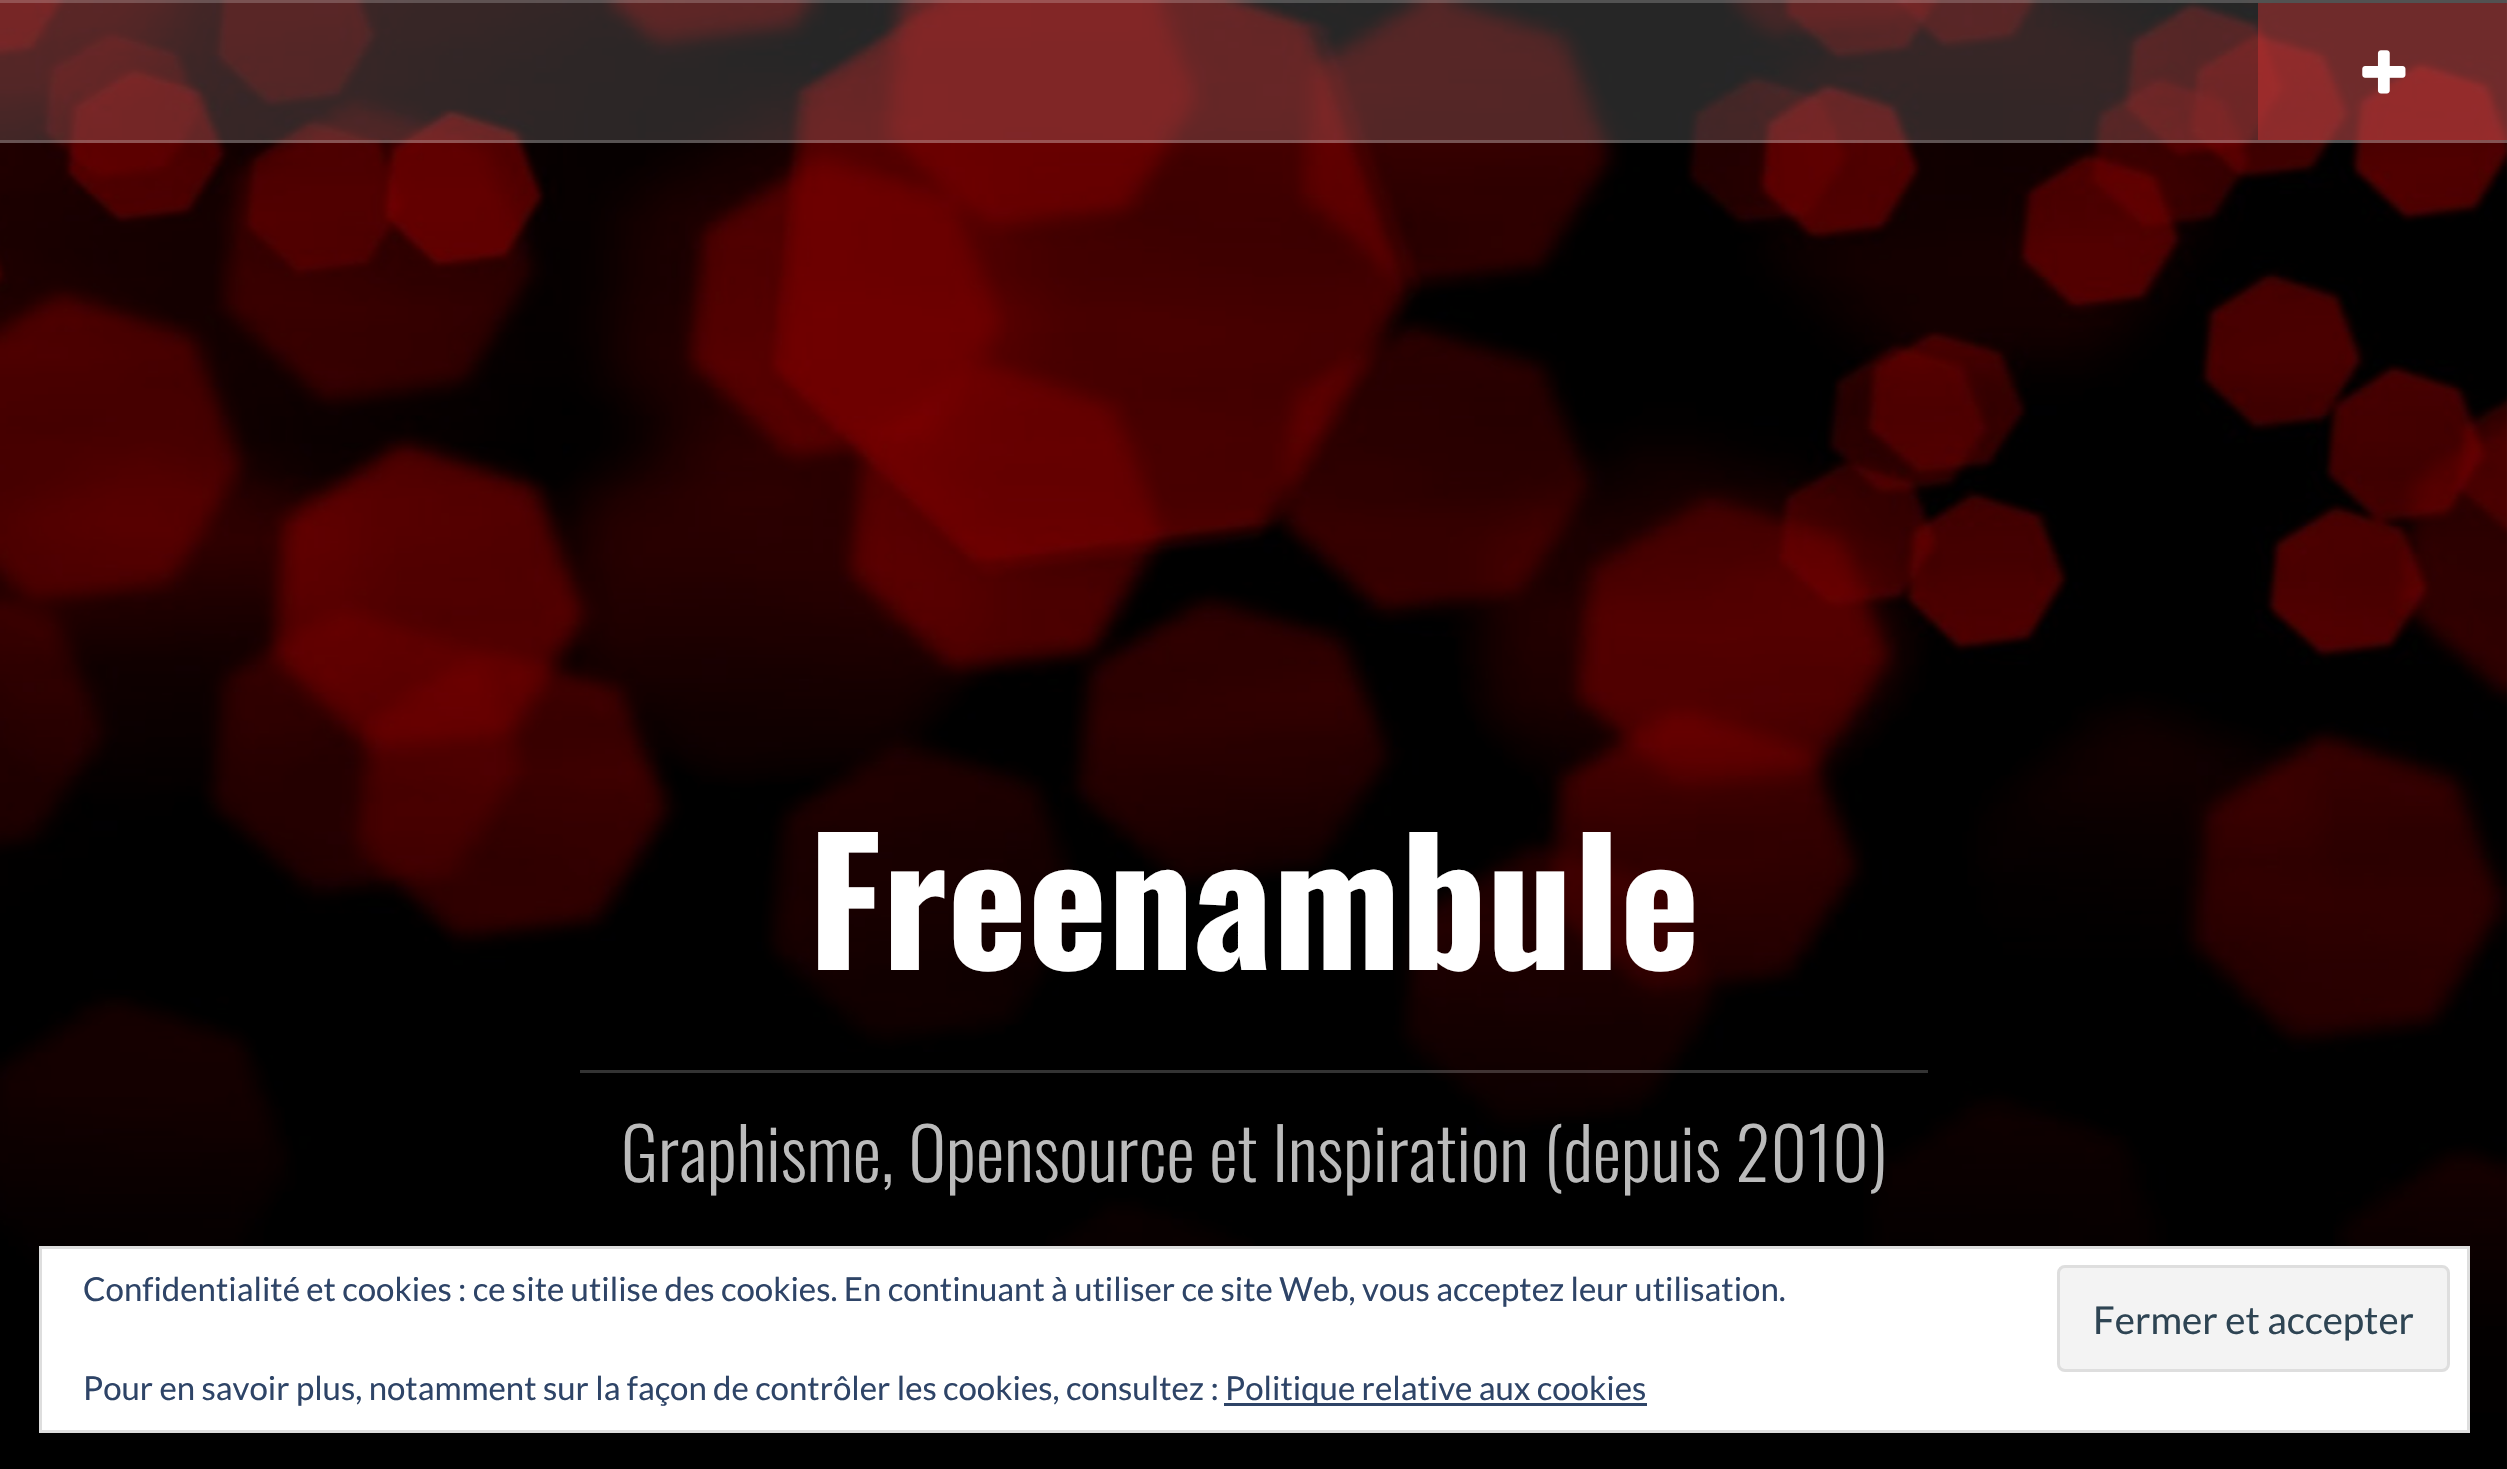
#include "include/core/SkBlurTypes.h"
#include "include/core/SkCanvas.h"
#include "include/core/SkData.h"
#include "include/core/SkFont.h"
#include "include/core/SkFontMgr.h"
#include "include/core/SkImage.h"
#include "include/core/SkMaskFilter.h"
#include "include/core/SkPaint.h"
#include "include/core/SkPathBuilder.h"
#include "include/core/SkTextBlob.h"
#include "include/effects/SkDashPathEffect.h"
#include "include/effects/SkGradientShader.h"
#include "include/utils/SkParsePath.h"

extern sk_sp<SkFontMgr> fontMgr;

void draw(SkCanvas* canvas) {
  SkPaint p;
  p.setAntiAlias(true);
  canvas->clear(SK_ColorWHITE);
  canvas->drawImageRect(SkImages::DeferredFromEncodedData(SkData::MakeFromFileName("images/1.png")), SkRect::MakeLTRB(0, 0, 2507, 1469), SkSamplingOptions());
  p.setColor(SkColorSetARGB(38, 255, 255, 255));
  canvas->drawRect(SkRect::MakeLTRB(0, 0, 2507, 143), p);
  p.setColor(SkColorSetARGB(51, 255, 255, 255));
  canvas->drawRect(SkRect::MakeLTRB(0, 0, 2507, 3), p);
  canvas->drawRect(SkRect::MakeLTRB(0, 140, 2507, 143), p);
  p.setColor(SkColorSetARGB(102, 221, 51, 51));
  canvas->drawRect(SkRect::MakeLTRB(2258, 3, 2507, 140), p);
  canvas->drawImageRect(SkImages::DeferredFromEncodedData(SkData::MakeFromFileName("images/2.png")), SkRect::MakeLTRB(2362, 50, 2406, 94), SkSamplingOptions());
  p.setColor(SkColorSetARGB(51, 255, 255, 255));
  canvas->drawRect(SkRect::MakeLTRB(580, 1070, 1928, 1073), p);
  p.setColor(SK_ColorWHITE);
  canvas->drawRect(SkRect::MakeLTRB(40.5f, 1247.5f, 2468.5f, 1431.5f), p);
  p.setStyle(SkPaint::kStroke_Style);
  p.setStrokeWidth(3);
  p.setColor(SkColorSetRGB(222, 222, 222));
  canvas->drawRect(SkRect::MakeLTRB(40.5f, 1247.5f, 2468.5f, 1431.5f), p);
  p.setStyle(SkPaint::kFill_Style);
  p.setColor(SkColorSetRGB(243, 243, 243));
  canvas->drawRoundRect(SkRect::MakeLTRB(2058.5f, 1266.5f, 2448.5f, 1370.5f), 6.5f, 6.5f, p);
  p.setStyle(SkPaint::kStroke_Style);
  p.setColor(SkColorSetRGB(222, 222, 222));
  canvas->drawRoundRect(SkRect::MakeLTRB(2058.5f, 1266.5f, 2448.5f, 1370.5f), 6.5f, 6.5f, p);
  p.setStyle(SkPaint::kFill_Style);
  p.setColor(SkColorSetRGB(46, 68, 103));
  canvas->drawRect(SkRect::MakeLTRB(1224, 1403, 1647, 1406), p);
  SkFont font1(fontMgr->matchFamilyStyle("Oswald", SkFontStyle::Bold()), 170.5f);
  font1.setSubpixel(true);
  p.setColor(SK_ColorWHITE);
  canvas->drawString("Freenambule", 808, 970, font1, p);
  SkFont font2(fontMgr->matchFamilyStyle("Oswald", SkFontStyle(300, SkFontStyle::kNormal_Width, SkFontStyle::kUpright_Slant)), 71.5f);
  font2.setSubpixel(true);
  p.setColor(SkColorSetRGB(187, 187, 187));
  canvas->drawString("Graphisme, Opensource et Inspiration (depuis 2010)", 621, 1182, font2, p);
  SkFont font3(fontMgr->matchFamilyStyle("Lato", SkFontStyle::Normal()), 33);
  font3.setSubpixel(true);
  p.setColor(SkColorSetRGB(46, 68, 103));
  canvas->drawString("Confidentialité et cookies : ce site utilise des cookies. En continuant à utiliser ce site Web, vous acceptez leur utilisation.", 83, 1301, font3, p);
  SkFont font4(fontMgr->matchFamilyStyle("Lato", SkFontStyle::Normal()), 38.5f);
  font4.setSubpixel(true);
  p.setColor(SkColorSetRGB(46, 68, 83));
  canvas->drawString("Fermer et accepter", 2093, 1334, font4, p);
  p.setColor(SkColorSetRGB(46, 68, 103));
  canvas->drawString("Pour en savoir plus, notamment sur la façon de contrôler les cookies, consultez :", 83, 1400, font3, p);
  canvas->drawString("Politique relative aux cookies", 1225, 1400, font3, p);
}
